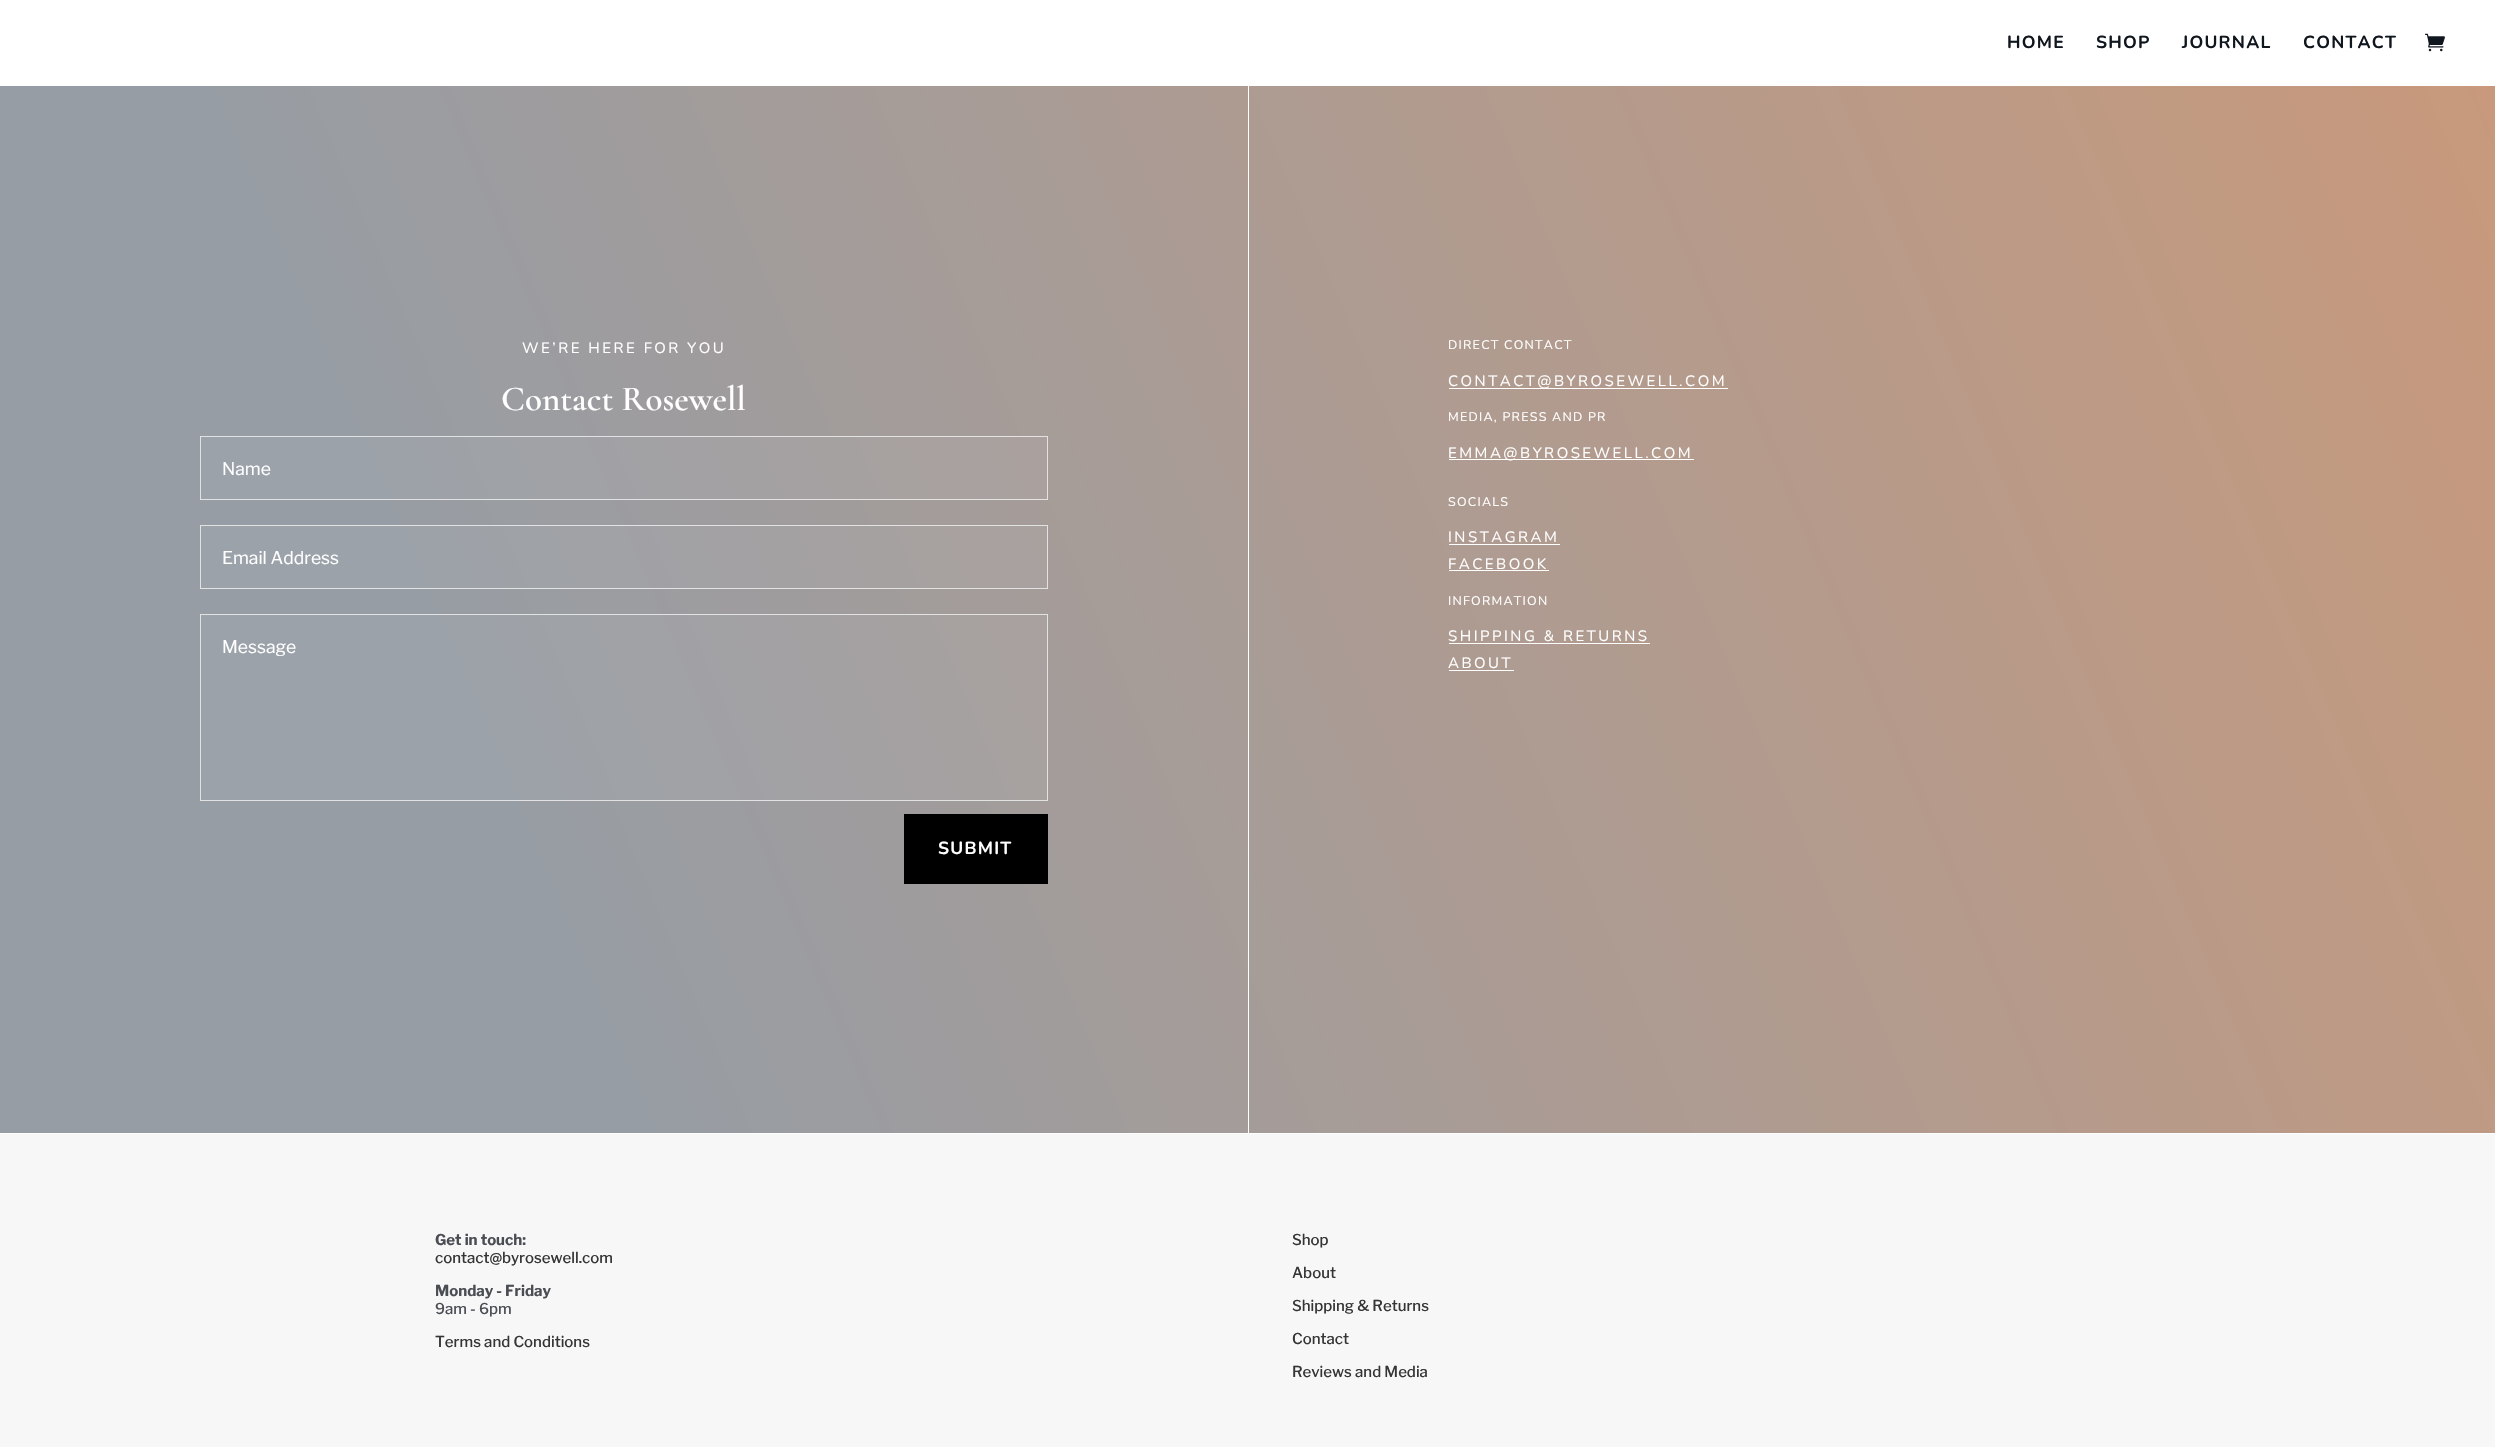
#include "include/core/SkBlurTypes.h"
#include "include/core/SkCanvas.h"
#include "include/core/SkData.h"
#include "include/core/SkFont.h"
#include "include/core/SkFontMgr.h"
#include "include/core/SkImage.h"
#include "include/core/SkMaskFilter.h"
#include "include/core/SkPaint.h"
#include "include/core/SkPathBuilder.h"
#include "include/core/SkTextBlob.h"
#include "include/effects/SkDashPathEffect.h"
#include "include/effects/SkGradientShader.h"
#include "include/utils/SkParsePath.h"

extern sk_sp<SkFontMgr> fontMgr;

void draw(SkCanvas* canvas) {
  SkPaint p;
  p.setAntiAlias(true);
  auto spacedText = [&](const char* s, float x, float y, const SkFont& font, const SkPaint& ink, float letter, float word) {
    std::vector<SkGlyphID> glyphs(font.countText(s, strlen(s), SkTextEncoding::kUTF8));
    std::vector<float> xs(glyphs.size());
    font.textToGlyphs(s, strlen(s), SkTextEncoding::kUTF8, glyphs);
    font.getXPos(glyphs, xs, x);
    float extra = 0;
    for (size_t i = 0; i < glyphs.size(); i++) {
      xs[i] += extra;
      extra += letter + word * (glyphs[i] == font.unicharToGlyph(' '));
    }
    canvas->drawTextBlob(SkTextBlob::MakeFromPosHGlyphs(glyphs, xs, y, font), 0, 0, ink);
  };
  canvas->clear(SK_ColorWHITE);
  canvas->drawImageRect(SkImages::DeferredFromEncodedData(SkData::MakeFromFileName("images/1.png")), SkRect::MakeLTRB(2425, 33, 2445, 52), SkSamplingOptions());
  {
    const SkColor colors[] = {SkColorSetRGB(150, 157, 165), SkColorSetRGB(200, 153, 124)};
    const float stops[] = {0.2f, 1};
    const SkPoint ends[] = {{2.3f, 1138}, {2493, 81}};
    p.setShader(SkGradientShader::MakeLinear(ends, colors, stops, 2, SkTileMode::kClamp));
    p.setAlpha(255);
  }
  canvas->drawRect(SkRect::MakeLTRB(0, 86, 2495, 1133), p);
  {
    const SkColor colors[] = {SkColorSetRGB(155, 162, 170), SkColorSetRGB(203, 158, 131)};
    const float stops[] = {0.2f, 1};
    const SkPoint ends[] = {{2.3f, 1138}, {2493, 81}};
    p.setShader(SkGradientShader::MakeLinear(ends, colors, stops, 2, SkTileMode::kClamp));
    p.setAlpha(255);
  }
  canvas->drawRect(SkRect::MakeLTRB(201, 615, 1047, 800), p);
  canvas->drawRect(SkRect::MakeLTRB(201, 526, 1047, 588), p);
  canvas->drawRect(SkRect::MakeLTRB(201, 437, 1047, 499), p);
  p.setStyle(SkPaint::kStroke_Style);
  p.setStrokeWidth(1);
  p.setShader(nullptr);
  p.setColor(SkColorSetRGB(226, 226, 226));
  canvas->drawRect(SkRect::MakeLTRB(200.5f, 436.5f, 1047.5f, 499.5f), p);
  canvas->drawRect(SkRect::MakeLTRB(200.5f, 525.5f, 1047.5f, 588.5f), p);
  canvas->drawRect(SkRect::MakeLTRB(200.5f, 614.5f, 1047.5f, 800.5f), p);
  p.setStyle(SkPaint::kFill_Style);
  p.setColor(SK_ColorBLACK);
  canvas->drawRect(SkRect::MakeLTRB(904, 814, 1048, 884), p);
  p.setColor(SK_ColorWHITE);
  canvas->drawRect(SkRect::MakeLTRB(1248, 86, 1249, 1133), p);
  canvas->drawRect(SkRect::MakeLTRB(1449, 388, 1728, 389), p);
  canvas->drawRect(SkRect::MakeLTRB(1449, 459, 1694, 460), p);
  canvas->drawRect(SkRect::MakeLTRB(1449, 544, 1560, 545), p);
  canvas->drawRect(SkRect::MakeLTRB(1449, 570, 1549, 571), p);
  canvas->drawRect(SkRect::MakeLTRB(1449, 643, 1650, 644), p);
  canvas->drawRect(SkRect::MakeLTRB(1449, 670, 1514, 671), p);
  p.setColor(SkColorSetRGB(247, 247, 247));
  canvas->drawRect(SkRect::MakeLTRB(0, 1134, 2495, 1447), p);
  SkFont font1(fontMgr->matchFamilyStyle("Nunito", SkFontStyle::Bold()), 17.5f);
  font1.setSubpixel(true);
  p.setColor(SkColorSetRGB(16, 22, 30));
  spacedText("HOME", 2007, 48, font1, p, 1.25f, 0);
  spacedText("SHOP", 2096, 48, font1, p, 1.25f, 0);
  spacedText("JOURNAL", 2182, 48, font1, p, 1.25f, 0);
  spacedText("CONTACT", 2303, 48, font1, p, 1.25f, 0);
  SkFont font2(fontMgr->matchFamilyStyle("Nunito", SkFontStyle::Normal()), 15);
  font2.setSubpixel(true);
  p.setColor(SK_ColorWHITE);
  spacedText("WE’RE HERE FOR YOU", 522, 353, font2, p, 2.5f, 0);
  SkFont font3(fontMgr->matchFamilyStyle("Cormorant Garamond", SkFontStyle(600, SkFontStyle::kNormal_Width, SkFontStyle::kUpright_Slant)), 35);
  font3.setSubpixel(true);
  canvas->drawString("Contact Rosewell", 501, 410, font3, p);
  SkFont font4(fontMgr->matchFamilyStyle("Libre Franklin", SkFontStyle::Normal()), 17.5f);
  font4.setSubpixel(true);
  canvas->drawString("Name", 222, 475, font4, p);
  canvas->drawString("Email Address", 222, 564, font4, p);
  canvas->drawString("Message", 222, 653, font4, p);
  spacedText("SUBMIT", 938, 854, font1, p, 1.25f, 0);
  SkFont font5(fontMgr->matchFamilyStyle("Nunito", SkFontStyle::Normal()), 12.5f);
  font5.setSubpixel(true);
  spacedText("DIRECT CONTACT", 1448, 349, font5, p, 1.25f, 0);
  spacedText("CONTACT@BYROSEWELL.COM", 1448, 386, font2, p, 2.5f, 0);
  spacedText("MEDIA, PRESS AND PR", 1448, 421, font5, p, 1.25f, 0);
  spacedText("EMMA@BYROSEWELL.COM", 1448, 458, font2, p, 2.5f, 0);
  spacedText("SOCIALS", 1448, 506, font5, p, 1.25f, 0);
  spacedText("INSTAGRAM", 1448, 542, font2, p, 2.5f, 0);
  spacedText("FACEBOOK", 1448, 569, font2, p, 2.5f, 0);
  spacedText("INFORMATION", 1448, 605, font5, p, 1.25f, 0);
  spacedText("SHIPPING & RETURNS", 1448, 641, font2, p, 2.5f, 0);
  spacedText("ABOUT", 1448, 668, font2, p, 2.5f, 0);
  SkFont font6(fontMgr->matchFamilyStyle("Libre Franklin", SkFontStyle::Bold()), 15);
  font6.setSubpixel(true);
  p.setColor(SkColorSetRGB(74, 78, 84));
  canvas->drawString("Get in touch:", 435, 1245, font6, p);
  SkFont font7(fontMgr->matchFamilyStyle("Libre Franklin", SkFontStyle(500, SkFontStyle::kNormal_Width, SkFontStyle::kUpright_Slant)), 15);
  font7.setSubpixel(true);
  p.setColor(SkColorSetRGB(53, 53, 53));
  canvas->drawString("contact@byrosewell.com", 435, 1263, font7, p);
  p.setColor(SkColorSetRGB(74, 78, 84));
  canvas->drawString("Monday - Friday", 435, 1296, font6, p);
  canvas->drawString("9am - 6pm", 435, 1314, font7, p);
  p.setColor(SkColorSetRGB(53, 53, 53));
  canvas->drawString("Terms and Conditions", 435, 1347, font7, p);
  canvas->drawString("Shop", 1292, 1245, font7, p);
  canvas->drawString("About", 1292, 1278, font7, p);
  canvas->drawString("Shipping & Returns", 1292, 1311, font7, p);
  canvas->drawString("Contact", 1292, 1344, font7, p);
  canvas->drawString("Reviews and Media", 1292, 1377, font7, p);
}
